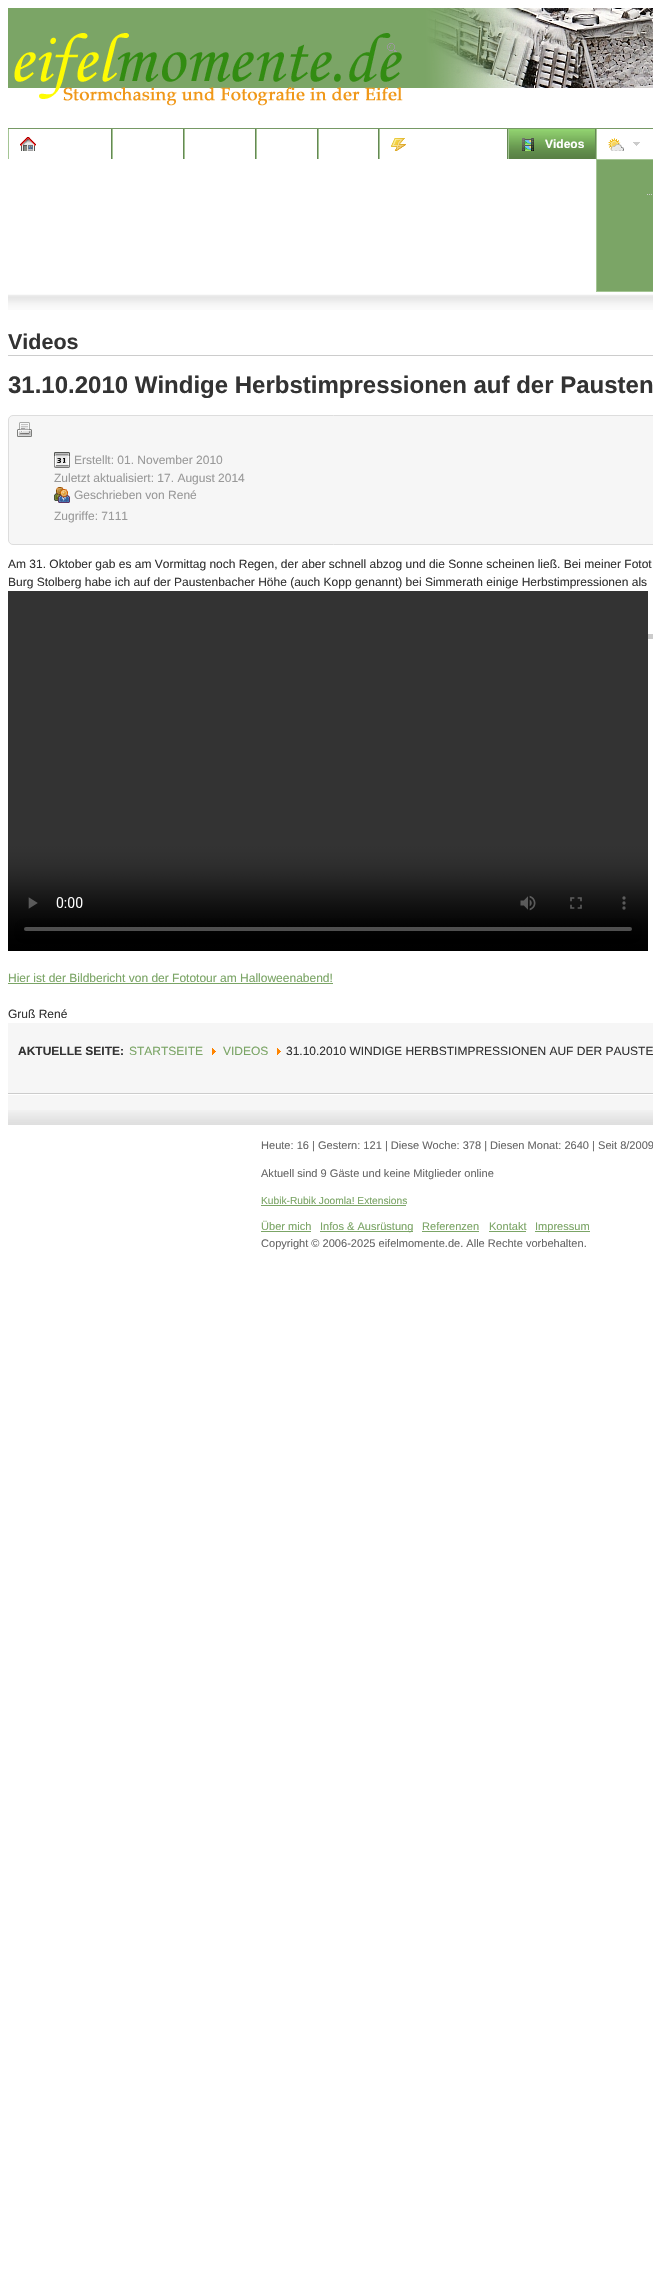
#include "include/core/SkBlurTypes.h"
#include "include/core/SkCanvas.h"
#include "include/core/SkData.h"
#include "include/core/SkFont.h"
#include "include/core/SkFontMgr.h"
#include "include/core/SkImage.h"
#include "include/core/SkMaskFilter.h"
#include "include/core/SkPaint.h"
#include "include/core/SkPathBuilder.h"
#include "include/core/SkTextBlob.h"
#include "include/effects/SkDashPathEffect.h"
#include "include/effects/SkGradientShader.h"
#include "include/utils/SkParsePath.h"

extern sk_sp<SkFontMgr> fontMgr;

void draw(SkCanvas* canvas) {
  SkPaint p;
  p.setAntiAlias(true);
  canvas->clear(SK_ColorWHITE);
  p.setColor(SkColorSetRGB(123, 165, 102));
  canvas->drawRect(SkRect::MakeLTRB(8, 8, 417, 88), p);
  canvas->drawImageRect(SkImages::DeferredFromEncodedData(SkData::MakeFromFileName("images/4.png")), SkRect::MakeLTRB(427, 8, 653, 88), SkSamplingOptions());
  canvas->drawImageRect(SkImages::DeferredFromEncodedData(SkData::MakeFromFileName("images/1.png")), SkRect::MakeLTRB(417, 8, 532, 88), SkSamplingOptions());
  canvas->drawImageRect(SkImages::DeferredFromEncodedData(SkData::MakeFromFileName("images/3.png")), SkRect::MakeLTRB(387, 43, 398, 53), SkSamplingOptions());
  canvas->drawImageRect(SkImages::DeferredFromEncodedData(SkData::MakeFromFileName("images/2.png")), SkRect::MakeLTRB(14, 33, 403, 106), SkSamplingOptions());
  p.setColor(SkColorSetRGB(118, 153, 101));
  canvas->drawRect(SkRect::MakeLTRB(8, 128, 653, 129), p);
  p.setColor(SkColorSetRGB(101, 136, 84));
  canvas->drawRect(SkRect::MakeLTRB(111, 129, 112, 159), p);
  p.setColor(SkColorSetRGB(164, 197, 148));
  canvas->drawRect(SkRect::MakeLTRB(8, 129, 9, 159), p);
  canvas->drawImageRect(SkImages::DeferredFromEncodedData(SkData::MakeFromFileName("images/5.png")), SkRect::MakeLTRB(20, 137, 36, 151), SkSamplingOptions());
  p.setColor(SkColorSetRGB(101, 136, 84));
  canvas->drawRect(SkRect::MakeLTRB(183, 129, 184, 159), p);
  p.setColor(SkColorSetRGB(164, 197, 148));
  canvas->drawRect(SkRect::MakeLTRB(112, 129, 113, 159), p);
  p.setColor(SkColorSetRGB(101, 136, 84));
  canvas->drawRect(SkRect::MakeLTRB(255, 129, 256, 159), p);
  p.setColor(SkColorSetRGB(164, 197, 148));
  canvas->drawRect(SkRect::MakeLTRB(184, 129, 185, 159), p);
  p.setColor(SkColorSetRGB(101, 136, 84));
  canvas->drawRect(SkRect::MakeLTRB(317, 129, 318, 159), p);
  p.setColor(SkColorSetRGB(164, 197, 148));
  canvas->drawRect(SkRect::MakeLTRB(256, 129, 257, 159), p);
  p.setColor(SkColorSetRGB(101, 136, 84));
  canvas->drawRect(SkRect::MakeLTRB(378, 129, 379, 159), p);
  p.setColor(SkColorSetRGB(164, 197, 148));
  canvas->drawRect(SkRect::MakeLTRB(318, 129, 319, 159), p);
  p.setColor(SkColorSetRGB(101, 136, 84));
  canvas->drawRect(SkRect::MakeLTRB(507, 129, 508, 159), p);
  p.setColor(SkColorSetRGB(164, 197, 148));
  canvas->drawRect(SkRect::MakeLTRB(379, 129, 380, 159), p);
  canvas->drawImageRect(SkImages::DeferredFromEncodedData(SkData::MakeFromFileName("images/6.png")), SkRect::MakeLTRB(391, 138, 406, 151), SkSamplingOptions());
  p.setColor(SkColorSetRGB(144, 209, 111));
  canvas->drawRect(SkRect::MakeLTRB(509, 129, 595, 159), p);
  canvas->drawImageRect(SkImages::DeferredFromEncodedData(SkData::MakeFromFileName("images/7.png")), SkRect::MakeLTRB(509, 131, 595, 159), SkSamplingOptions());
  p.setColor(SkColorSetRGB(101, 136, 84));
  canvas->drawRect(SkRect::MakeLTRB(595, 129, 596, 159), p);
  p.setColor(SkColorSetRGB(164, 197, 148));
  canvas->drawRect(SkRect::MakeLTRB(508, 129, 509, 159), p);
  canvas->drawImageRect(SkImages::DeferredFromEncodedData(SkData::MakeFromFileName("images/8.png")), SkRect::MakeLTRB(522, 138, 534, 151), SkSamplingOptions());
  canvas->drawRect(SkRect::MakeLTRB(596, 129, 597, 159), p);
  canvas->drawImageRect(SkImages::DeferredFromEncodedData(SkData::MakeFromFileName("images/9.png")), SkRect::MakeLTRB(608, 138, 624, 151), SkSamplingOptions());
  canvas->drawImageRect(SkImages::DeferredFromEncodedData(SkData::MakeFromFileName("images/10.png")), SkRect::MakeLTRB(633, 142, 640, 146), SkSamplingOptions());
  p.setColor(SkColorSetRGB(123, 165, 102));
  canvas->drawRect(SkRect::MakeLTRB(596.5f, 159.5f, 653.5f, 291.5f), p);
  p.setStyle(SkPaint::kStroke_Style);
  p.setStrokeWidth(1);
  p.setColor(SkColorSetRGB(164, 197, 148));
  canvas->drawRect(SkRect::MakeLTRB(596.5f, 159.5f, 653.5f, 291.5f), p);
  p.setColor(SkColorSetRGB(204, 204, 204));
  p.setPathEffect(SkDashPathEffect::Make({{1, 1}}, 0));
  canvas->drawPath(SkPathBuilder().moveTo(647, 194.5f).lineTo(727, 194.5f).detach(), p);
  p.setPathEffect(nullptr);
  canvas->drawImageRect(SkImages::DeferredFromEncodedData(SkData::MakeFromFileName("images/11.png")), SkRect::MakeLTRB(8, 294, 653, 310), SkSamplingOptions());
  p.setStyle(SkPaint::kFill_Style);
  canvas->drawRect(SkRect::MakeLTRB(648, 634, 653, 639), p);
  canvas->drawRect(SkRect::MakeLTRB(8, 355, 653, 356), p);
  p.setColor(SkColorSetRGB(246, 246, 246));
  canvas->drawRoundRect(SkRect::MakeLTRB(8.5f, 415.5f, 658.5f, 544.5f), 4.5f, 4.5f, p);
  p.setStyle(SkPaint::kStroke_Style);
  p.setColor(SkColorSetRGB(221, 221, 221));
  canvas->drawRoundRect(SkRect::MakeLTRB(8.5f, 415.5f, 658.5f, 544.5f), 4.5f, 4.5f, p);
  canvas->drawImageRect(SkImages::DeferredFromEncodedData(SkData::MakeFromFileName("images/12.png")), SkRect::MakeLTRB(17, 422, 32, 437), SkSamplingOptions());
  canvas->drawImageRect(SkImages::DeferredFromEncodedData(SkData::MakeFromFileName("images/13.png")), SkRect::MakeLTRB(54, 452, 70, 468), SkSamplingOptions());
  canvas->drawImageRect(SkImages::DeferredFromEncodedData(SkData::MakeFromFileName("images/14.png")), SkRect::MakeLTRB(54, 487, 70, 503), SkSamplingOptions());
  canvas->drawImageRect(SkImages::DeferredFromEncodedData(SkData::MakeFromFileName("images/15.png")), SkRect::MakeLTRB(8, 591, 648, 951), SkSamplingOptions());
  p.setStyle(SkPaint::kFill_Style);
  p.setColor(SkColorSetRGB(123, 165, 102));
  canvas->drawRect(SkRect::MakeLTRB(8, 983, 333, 984), p);
  p.setColor(SkColorSetRGB(246, 246, 246));
  canvas->drawRect(SkRect::MakeLTRB(8, 1023, 653, 1093), p);
  p.setColor(SkColorSetRGB(204, 204, 204));
  canvas->drawRect(SkRect::MakeLTRB(8, 1093, 653, 1094), p);
  canvas->drawImageRect(SkImages::DeferredFromEncodedData(SkData::MakeFromFileName("images/16.png")), SkRect::MakeLTRB(212, 1048, 216, 1055), SkSamplingOptions());
  canvas->drawImageRect(SkImages::DeferredFromEncodedData(SkData::MakeFromFileName("images/16.png")), SkRect::MakeLTRB(277, 1048, 281, 1055), SkSamplingOptions());
  p.setColor(SkColorSetRGB(246, 246, 246));
  canvas->drawRect(SkRect::MakeLTRB(8, 1095, 653, 1110), p);
  canvas->drawImageRect(SkImages::DeferredFromEncodedData(SkData::MakeFromFileName("images/17.png")), SkRect::MakeLTRB(8, 1110, 653, 1125), SkSamplingOptions());
  p.setColor(SkColorSetRGB(123, 165, 102));
  canvas->drawRect(SkRect::MakeLTRB(261, 1205, 406, 1206), p);
  canvas->drawRect(SkRect::MakeLTRB(261, 1231, 311, 1232), p);
  canvas->drawRect(SkRect::MakeLTRB(320, 1231, 413, 1232), p);
  canvas->drawRect(SkRect::MakeLTRB(422, 1231, 479, 1232), p);
  canvas->drawRect(SkRect::MakeLTRB(489, 1231, 526, 1232), p);
  canvas->drawRect(SkRect::MakeLTRB(535, 1231, 590, 1232), p);
  SkFont font1(fontMgr->matchFamilyStyle("Liberation Sans", SkFontStyle::Bold()), 12);
  font1.setSubpixel(true);
  p.setColor(SK_ColorWHITE);
  canvas->drawString("Videos", 545, 148, font1, p);
  SkFont font2(fontMgr->matchFamilyStyle("Liberation Sans", SkFontStyle::Bold()), 21.5f);
  font2.setSubpixel(true);
  p.setColor(SkColorSetRGB(51, 51, 51));
  canvas->drawString("Videos", 8, 349, font2, p);
  SkFont font3(fontMgr->matchFamilyStyle("Liberation Sans", SkFontStyle::Bold()), 24);
  font3.setSubpixel(true);
  canvas->drawString("31.10.2010 Windige Herbstimpressionen auf der Pausten", 8, 393, font3, p);
  SkFont font4(fontMgr->matchFamilyStyle("Liberation Sans", SkFontStyle::Normal()), 12);
  font4.setSubpixel(true);
  p.setColor(SkColorSetRGB(153, 153, 153));
  canvas->drawString("Erstellt: 01. November 2010", 74, 464, font4, p);
  canvas->drawString("Zuletzt aktualisiert: 17. August 2014", 54, 482, font4, p);
  canvas->drawString("Geschrieben von René", 74, 499, font4, p);
  canvas->drawString("Zugriffe: 7111", 54, 520, font4, p);
  p.setColor(SkColorSetRGB(51, 51, 51));
  canvas->drawString("Am 31. Oktober gab es am Vormittag noch Regen, der aber schnell abzog und die Sonne scheinen ließ. Bei meiner Fotot", 8, 568, font4, p);
  canvas->drawString("Burg Stolberg habe ich auf der Paustenbacher Höhe (auch Kopp genannt) bei Simmerath einige Herbstimpressionen als", 8, 586, font4, p);
  p.setColor(SkColorSetRGB(123, 165, 102));
  canvas->drawString("Hier ist der Bildbericht von der Fototour am Halloweenabend!", 8, 982, font4, p);
  p.setColor(SkColorSetRGB(51, 51, 51));
  canvas->drawString("Gruß René", 8, 1018, font4, p);
  canvas->drawString("AKTUELLE SEITE:", 18, 1055, font1, p);
  p.setColor(SkColorSetRGB(123, 165, 102));
  canvas->drawString("STARTSEITE", 129, 1055, font4, p);
  canvas->drawString("VIDEOS", 223, 1055, font4, p);
  p.setColor(SkColorSetRGB(51, 51, 51));
  canvas->drawString("31.10.2010 WINDIGE HERBSTIMPRESSIONEN AUF DER PAUSTE", 286, 1055, font4, p);
  SkFont font5(fontMgr->matchFamilyStyle("Liberation Sans", SkFontStyle::Normal()), 11.05f);
  font5.setSubpixel(true);
  p.setColor(SkColorSetRGB(102, 102, 102));
  canvas->drawString("Heute: 16 | Gestern: 121 | Diese Woche: 378 | Diesen Monat: 2640 | Seit 8/2009", 261, 1149, font5, p);
  canvas->drawString("Aktuell sind 9 Gäste und keine Mitglieder online", 261, 1177, font5, p);
  SkFont font6(fontMgr->matchFamilyStyle("Liberation Sans", SkFontStyle::Normal()), 10.2f);
  font6.setSubpixel(true);
  p.setColor(SkColorSetRGB(123, 165, 102));
  canvas->drawString("Kubik-Rubik Joomla! Extensions", 261, 1204, font6, p);
  canvas->drawString("Über mich", 261, 1230, font5, p);
  canvas->drawString("Infos & Ausrüstung", 320, 1230, font5, p);
  canvas->drawString("Referenzen", 422, 1230, font5, p);
  canvas->drawString("Kontakt", 489, 1230, font5, p);
  canvas->drawString("Impressum", 535, 1230, font5, p);
  p.setColor(SkColorSetRGB(102, 102, 102));
  canvas->drawString("Copyright © 2006-2025 eifelmomente.de. Alle Rechte vorbehalten.", 261, 1247, font5, p);
}
